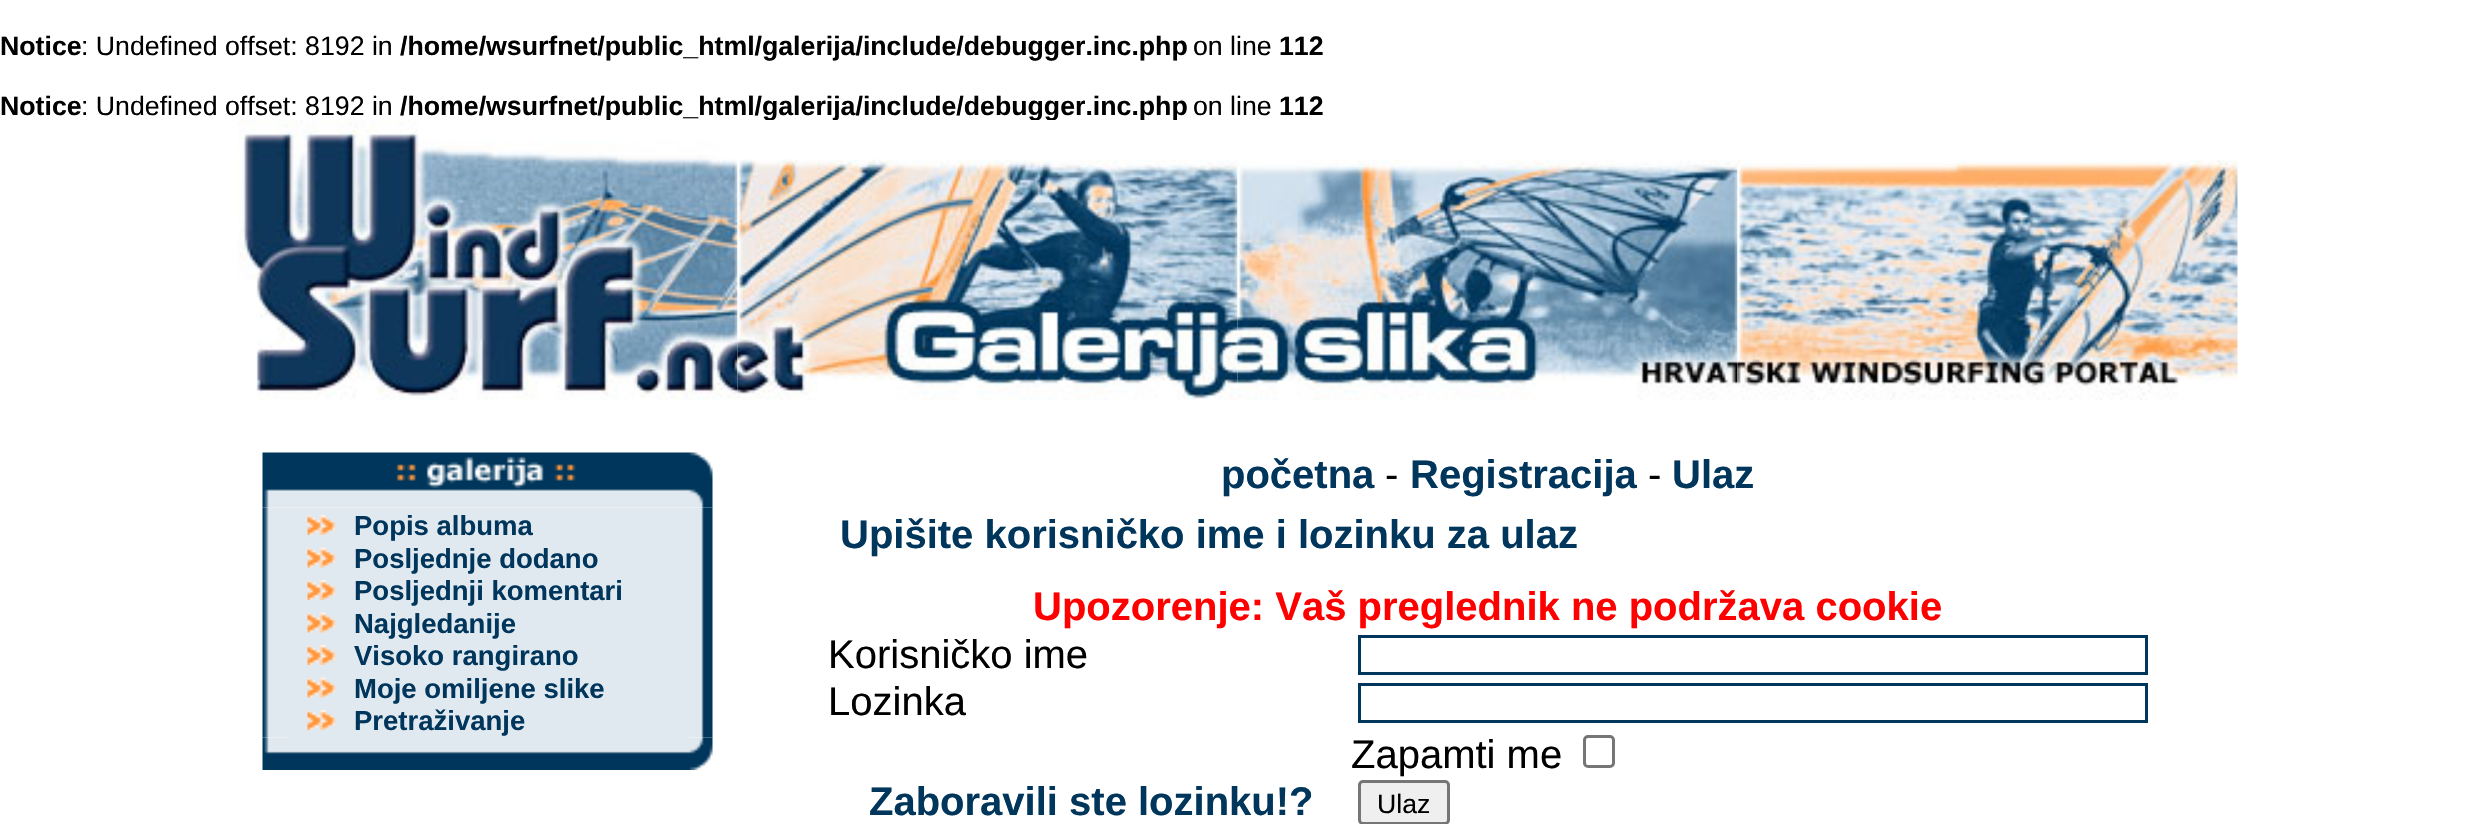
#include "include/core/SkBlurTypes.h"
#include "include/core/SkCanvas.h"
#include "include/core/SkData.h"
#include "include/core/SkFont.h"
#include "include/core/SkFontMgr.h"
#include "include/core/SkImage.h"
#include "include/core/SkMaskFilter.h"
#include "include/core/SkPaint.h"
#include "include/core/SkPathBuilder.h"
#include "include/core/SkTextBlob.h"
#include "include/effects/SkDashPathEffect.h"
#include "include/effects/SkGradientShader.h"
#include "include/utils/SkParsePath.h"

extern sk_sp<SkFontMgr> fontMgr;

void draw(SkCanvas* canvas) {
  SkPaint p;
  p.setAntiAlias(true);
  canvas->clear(SK_ColorWHITE);
  canvas->drawImageRect(SkImages::DeferredFromEncodedData(SkData::MakeFromFileName("images/6.png")), SkRect::MakeLTRB(262, 507, 713, 738), SkSamplingOptions());
  canvas->drawImageRect(SkImages::DeferredFromEncodedData(SkData::MakeFromFileName("images/5.png")), SkRect::MakeLTRB(262, 452, 713, 508), SkSamplingOptions());
  p.setColor(SkColorSetRGB(225, 233, 240));
  canvas->drawRect(SkRect::MakeLTRB(288, 737, 688, 738), p);
  canvas->drawImageRect(SkImages::DeferredFromEncodedData(SkData::MakeFromFileName("images/7.png")), SkRect::MakeLTRB(307, 515, 335, 535), SkSamplingOptions());
  canvas->drawImageRect(SkImages::DeferredFromEncodedData(SkData::MakeFromFileName("images/8.png")), SkRect::MakeLTRB(307, 547, 335, 568), SkSamplingOptions());
  canvas->drawImageRect(SkImages::DeferredFromEncodedData(SkData::MakeFromFileName("images/9.png")), SkRect::MakeLTRB(307, 580, 335, 600), SkSamplingOptions());
  canvas->drawImageRect(SkImages::DeferredFromEncodedData(SkData::MakeFromFileName("images/8.png")), SkRect::MakeLTRB(307, 612, 335, 633), SkSamplingOptions());
  canvas->drawImageRect(SkImages::DeferredFromEncodedData(SkData::MakeFromFileName("images/7.png")), SkRect::MakeLTRB(307, 645, 335, 665), SkSamplingOptions());
  canvas->drawImageRect(SkImages::DeferredFromEncodedData(SkData::MakeFromFileName("images/8.png")), SkRect::MakeLTRB(307, 677, 335, 698), SkSamplingOptions());
  canvas->drawImageRect(SkImages::DeferredFromEncodedData(SkData::MakeFromFileName("images/7.png")), SkRect::MakeLTRB(307, 710, 335, 730), SkSamplingOptions());
  canvas->drawImageRect(SkImages::DeferredFromEncodedData(SkData::MakeFromFileName("images/10.png")), SkRect::MakeLTRB(262, 737, 713, 770), SkSamplingOptions());
  p.setStyle(SkPaint::kStroke_Style);
  p.setStrokeWidth(3);
  p.setColor(SkColorSetRGB(0, 54, 91));
  canvas->drawRect(SkRect::MakeLTRB(1359.5f, 636.5f, 2146.5f, 673.5f), p);
  canvas->drawRect(SkRect::MakeLTRB(1359.5f, 684.5f, 2146.5f, 721.5f), p);
  p.setColor(SkColorSetRGB(118, 118, 118));
  canvas->drawRoundRect(SkRect::MakeLTRB(1584.5f, 736.5f, 1613.5f, 766.5f), 3.5f, 3.5f, p);
  p.setStyle(SkPaint::kFill_Style);
  p.setColor(SkColorSetRGB(239, 239, 239));
  canvas->drawRoundRect(SkRect::MakeLTRB(1359.5f, 781.5f, 1448.5f, 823.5f), 3.5f, 3.5f, p);
  p.setStyle(SkPaint::kStroke_Style);
  p.setColor(SkColorSetRGB(118, 118, 118));
  canvas->drawRoundRect(SkRect::MakeLTRB(1359.5f, 781.5f, 1448.5f, 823.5f), 3.5f, 3.5f, p);
  SkFont font1(fontMgr->matchFamilyStyle("Liberation Sans", SkFontStyle::Bold()), 26.7f);
  font1.setSubpixel(true);
  p.setStyle(SkPaint::kFill_Style);
  p.setColor(SK_ColorBLACK);
  canvas->drawString("Notice", 0, 55, font1, p);
  SkFont font2(fontMgr->matchFamilyStyle("Liberation Sans", SkFontStyle::Normal()), 26.7f);
  font2.setSubpixel(true);
  canvas->drawString(": Undefined offset: 8192 in", 81, 55, font2, p);
  canvas->drawString("/home/wsurfnet/public_html/galerija/include/debugger.inc.php", 400, 55, font1, p);
  canvas->drawString("on line", 1193, 55, font2, p);
  canvas->drawString("112", 1279, 55, font1, p);
  canvas->drawString("Notice", 0, 115, font1, p);
  canvas->drawString(": Undefined offset: 8192 in", 81, 115, font2, p);
  canvas->drawString("/home/wsurfnet/public_html/galerija/include/debugger.inc.php", 400, 115, font1, p);
  canvas->drawString("on line", 1193, 115, font2, p);
  canvas->drawString("112", 1279, 115, font1, p);
  canvas->drawImageRect(SkImages::DeferredFromEncodedData(SkData::MakeFromFileName("images/1.png")), SkRect::MakeLTRB(237, 120, 738, 401), SkSamplingOptions());
  canvas->drawImageRect(SkImages::DeferredFromEncodedData(SkData::MakeFromFileName("images/2.png")), SkRect::MakeLTRB(737, 120, 1238, 401), SkSamplingOptions());
  canvas->drawImageRect(SkImages::DeferredFromEncodedData(SkData::MakeFromFileName("images/3.png")), SkRect::MakeLTRB(1237, 160, 1738, 400), SkSamplingOptions());
  canvas->drawImageRect(SkImages::DeferredFromEncodedData(SkData::MakeFromFileName("images/4.png")), SkRect::MakeLTRB(1737, 160, 2238, 400), SkSamplingOptions());
  SkFont font3(fontMgr->matchFamilyStyle("Liberation Sans", SkFontStyle::Bold()), 27.5f);
  font3.setSubpixel(true);
  p.setColor(SkColorSetRGB(0, 54, 91));
  canvas->drawString("Popis albuma", 354, 535, font3, p);
  canvas->drawString("Posljednje dodano", 354, 568, font3, p);
  canvas->drawString("Posljednji komentari", 354, 600, font3, p);
  canvas->drawString("Najgledanije", 354, 633, font3, p);
  canvas->drawString("Visoko rangirano", 354, 665, font3, p);
  canvas->drawString("Moje omiljene slike", 354, 698, font3, p);
  canvas->drawString("Pretraživanje", 354, 730, font3, p);
  SkFont font4(fontMgr->matchFamilyStyle("Liberation Sans", SkFontStyle::Bold()), 40);
  font4.setSubpixel(true);
  canvas->drawString("početna", 1221, 488, font4, p);
  SkFont font5(fontMgr->matchFamilyStyle("Liberation Sans", SkFontStyle::Normal()), 40);
  font5.setSubpixel(true);
  p.setColor(SK_ColorBLACK);
  canvas->drawString("-", 1385, 488, font5, p);
  p.setColor(SkColorSetRGB(0, 54, 91));
  canvas->drawString("Registracija", 1410, 488, font4, p);
  p.setColor(SK_ColorBLACK);
  canvas->drawString("-", 1648, 488, font5, p);
  p.setColor(SkColorSetRGB(0, 54, 91));
  canvas->drawString("Ulaz", 1672, 488, font4, p);
  canvas->drawString("Upišite korisničko ime i lozinku za ulaz", 840, 548, font4, p);
  p.setColor(SkColorSetRGB(255, 0, 0));
  canvas->drawString("Upozorenje: Vaš preglednik ne podržava cookie", 1033, 620, font4, p);
  p.setColor(SK_ColorBLACK);
  canvas->drawString("Korisničko ime", 828, 668, font5, p);
  canvas->drawString("Lozinka", 828, 715, font5, p);
  canvas->drawString("Zapamti me", 1351, 768, font5, p);
  p.setColor(SkColorSetRGB(0, 54, 91));
  canvas->drawString("Zaboravili ste lozinku!?", 869, 815, font4, p);
  p.setColor(SK_ColorBLACK);
  canvas->drawString("Ulaz", 1377, 813, font2, p);
}
